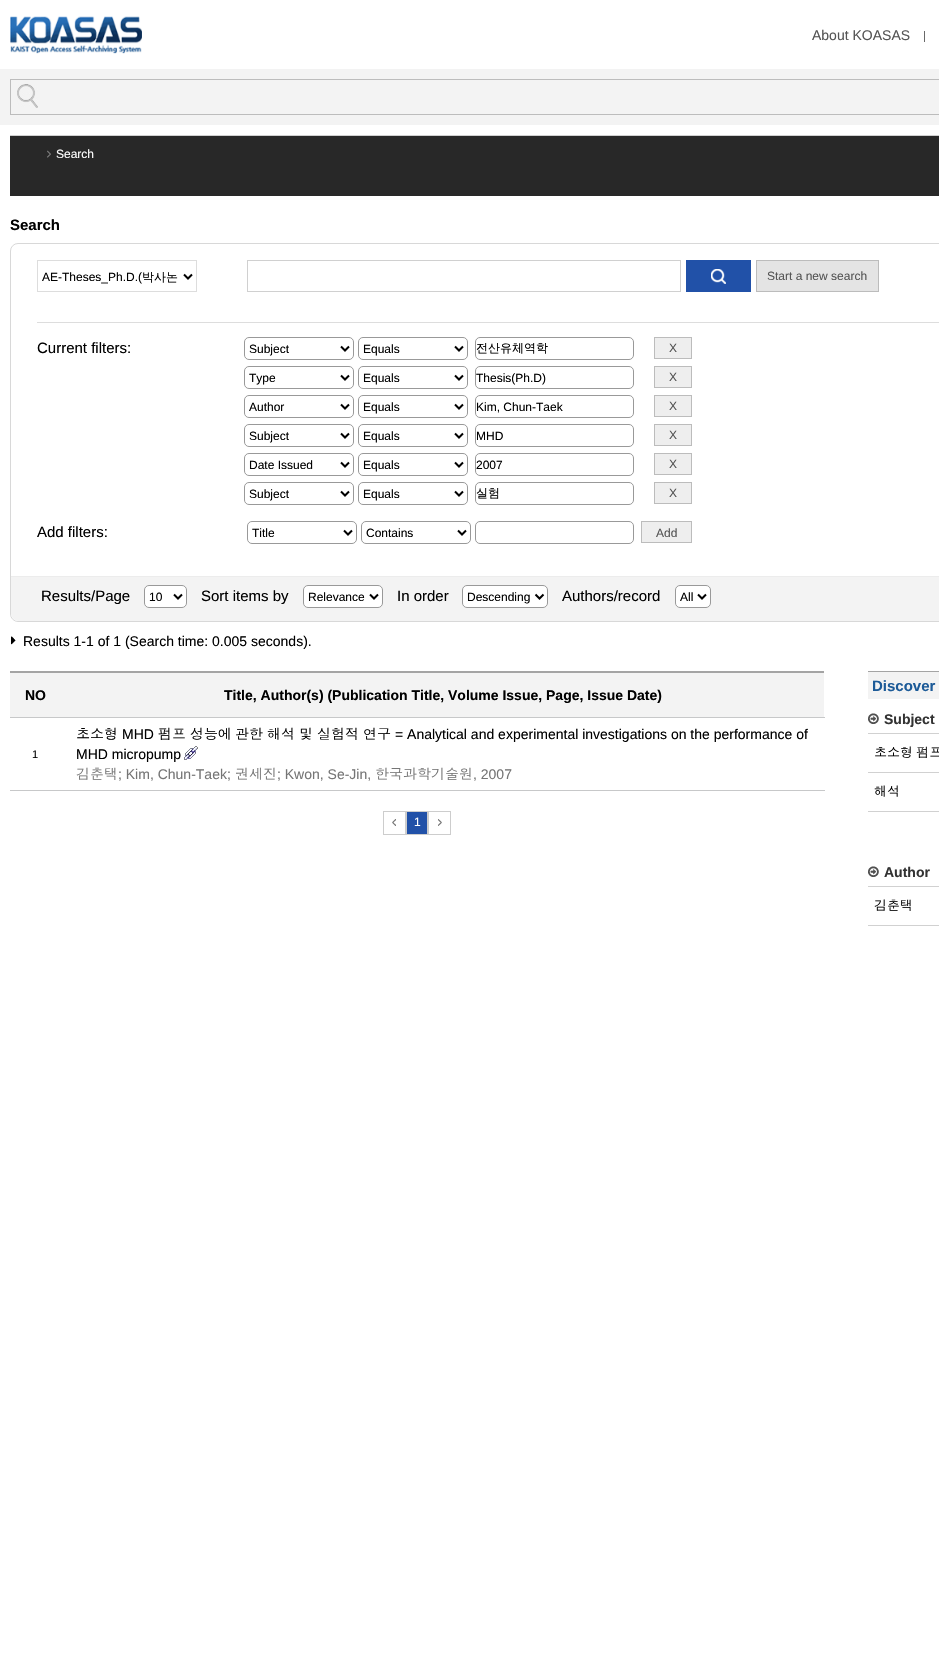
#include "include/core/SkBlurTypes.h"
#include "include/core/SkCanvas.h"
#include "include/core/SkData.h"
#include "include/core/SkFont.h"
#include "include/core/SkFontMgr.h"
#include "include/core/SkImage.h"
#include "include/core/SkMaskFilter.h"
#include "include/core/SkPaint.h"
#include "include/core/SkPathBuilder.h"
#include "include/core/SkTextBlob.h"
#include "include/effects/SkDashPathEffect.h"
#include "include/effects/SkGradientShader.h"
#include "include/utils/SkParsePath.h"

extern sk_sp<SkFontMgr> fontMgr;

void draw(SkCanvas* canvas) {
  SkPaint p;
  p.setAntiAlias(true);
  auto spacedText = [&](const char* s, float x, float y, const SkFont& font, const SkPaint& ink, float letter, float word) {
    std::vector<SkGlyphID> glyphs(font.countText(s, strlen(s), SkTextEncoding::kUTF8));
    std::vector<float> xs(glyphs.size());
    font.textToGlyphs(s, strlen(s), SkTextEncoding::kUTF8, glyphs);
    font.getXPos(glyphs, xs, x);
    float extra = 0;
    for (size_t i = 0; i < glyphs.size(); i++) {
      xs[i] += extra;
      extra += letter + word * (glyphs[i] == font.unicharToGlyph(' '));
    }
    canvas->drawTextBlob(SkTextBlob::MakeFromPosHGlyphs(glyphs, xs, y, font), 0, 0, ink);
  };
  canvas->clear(SK_ColorWHITE);
  canvas->drawImageRect(SkImages::DeferredFromEncodedData(SkData::MakeFromFileName("images/1.png")), SkRect::MakeLTRB(10, 16, 142, 54), SkSamplingOptions());
  p.setColor(SkColorSetRGB(105, 105, 105));
  canvas->drawRect(SkRect::MakeLTRB(924, 31, 925, 42), p);
  p.setColor(SkColorSetRGB(243, 243, 243));
  canvas->drawRect(SkRect::MakeLTRB(0, 69, 939, 125), p);
  canvas->drawImageRect(SkImages::DeferredFromEncodedData(SkData::MakeFromFileName("images/2.png")), SkRect::MakeLTRB(17, 84, 38, 108), SkSamplingOptions());
  p.setStyle(SkPaint::kStroke_Style);
  p.setStrokeWidth(1);
  p.setColor(SkColorSetRGB(188, 188, 188));
  canvas->drawRect(SkRect::MakeLTRB(10.5f, 79.5f, 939.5f, 114.5f), p);
  p.setStyle(SkPaint::kFill_Style);
  p.setColor(SkColorSetRGB(208, 208, 208));
  canvas->drawRect(SkRect::MakeLTRB(10, 135, 939, 136), p);
  p.setColor(SkColorSetRGB(40, 40, 40));
  canvas->drawRect(SkRect::MakeLTRB(10, 136, 939, 196), p);
  canvas->drawImageRect(SkImages::DeferredFromEncodedData(SkData::MakeFromFileName("images/3.png")), SkRect::MakeLTRB(47, 150, 51, 158), SkSamplingOptions());
  p.setStyle(SkPaint::kStroke_Style);
  p.setColor(SkColorSetRGB(216, 216, 216));
  canvas->drawRoundRect(SkRect::MakeLTRB(10.5f, 243.5f, 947.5f, 621.5f), 7.5f, 7.5f, p);
  p.setStyle(SkPaint::kFill_Style);
  p.setColor(SkColorSetRGB(221, 221, 221));
  canvas->drawRect(SkRect::MakeLTRB(37, 322, 939, 323), p);
  p.setStyle(SkPaint::kStroke_Style);
  canvas->drawRect(SkRect::MakeLTRB(37.5f, 260.5f, 196.5f, 291.5f), p);
  p.setStrokeWidth(2);
  p.setColor(SK_ColorBLACK);
  canvas->drawPath(SkPathBuilder().moveTo(184, 274.5f).lineTo(188, 278.5f).lineTo(192, 274.5f).detach(), p);
  p.setStrokeWidth(1);
  p.setColor(SkColorSetRGB(208, 208, 208));
  canvas->drawRect(SkRect::MakeLTRB(247.5f, 260.5f, 680.5f, 291.5f), p);
  p.setStyle(SkPaint::kFill_Style);
  p.setColor(SkColorSetRGB(33, 81, 168));
  canvas->drawRect(SkRect::MakeLTRB(686, 260, 751, 292), p);
  canvas->drawImageRect(SkImages::DeferredFromEncodedData(SkData::MakeFromFileName("images/4.png")), SkRect::MakeLTRB(711, 269, 726, 284), SkSamplingOptions());
  p.setColor(SkColorSetRGB(228, 228, 228));
  canvas->drawRect(SkRect::MakeLTRB(756.5f, 260.5f, 878.5f, 291.5f), p);
  p.setStyle(SkPaint::kStroke_Style);
  p.setColor(SkColorSetRGB(188, 188, 188));
  canvas->drawRect(SkRect::MakeLTRB(756.5f, 260.5f, 878.5f, 291.5f), p);
  p.setColor(SkColorSetRGB(153, 153, 153));
  canvas->drawRoundRect(SkRect::MakeLTRB(244.5f, 337.5f, 353.5f, 359.5f), 4.5f, 4.5f, p);
  p.setStrokeWidth(2);
  p.setColor(SK_ColorBLACK);
  canvas->drawPath(SkPathBuilder().moveTo(341, 346.5f).lineTo(345, 350.5f).lineTo(349, 346.5f).detach(), p);
  p.setStrokeWidth(1);
  p.setColor(SkColorSetRGB(153, 153, 153));
  canvas->drawRoundRect(SkRect::MakeLTRB(358.5f, 337.5f, 467.5f, 359.5f), 4.5f, 4.5f, p);
  p.setStrokeWidth(2);
  p.setColor(SK_ColorBLACK);
  canvas->drawPath(SkPathBuilder().moveTo(455, 346.5f).lineTo(459, 350.5f).lineTo(463, 346.5f).detach(), p);
  p.setStrokeWidth(1);
  p.setColor(SkColorSetRGB(153, 153, 153));
  canvas->drawRoundRect(SkRect::MakeLTRB(475.5f, 337.5f, 633.5f, 359.5f), 4.5f, 4.5f, p);
  p.setStyle(SkPaint::kFill_Style);
  p.setColor(SkColorSetRGB(238, 238, 238));
  canvas->drawRect(SkRect::MakeLTRB(654.5f, 337.5f, 691.5f, 358.5f), p);
  p.setStyle(SkPaint::kStroke_Style);
  p.setColor(SkColorSetRGB(188, 188, 188));
  canvas->drawRect(SkRect::MakeLTRB(654.5f, 337.5f, 691.5f, 358.5f), p);
  p.setColor(SkColorSetRGB(153, 153, 153));
  canvas->drawRoundRect(SkRect::MakeLTRB(244.5f, 366.5f, 353.5f, 388.5f), 4.5f, 4.5f, p);
  p.setStrokeWidth(2);
  p.setColor(SK_ColorBLACK);
  canvas->drawPath(SkPathBuilder().moveTo(341, 375.5f).lineTo(345, 379.5f).lineTo(349, 375.5f).detach(), p);
  p.setStrokeWidth(1);
  p.setColor(SkColorSetRGB(153, 153, 153));
  canvas->drawRoundRect(SkRect::MakeLTRB(358.5f, 366.5f, 467.5f, 388.5f), 4.5f, 4.5f, p);
  p.setStrokeWidth(2);
  p.setColor(SK_ColorBLACK);
  canvas->drawPath(SkPathBuilder().moveTo(455, 375.5f).lineTo(459, 379.5f).lineTo(463, 375.5f).detach(), p);
  p.setStrokeWidth(1);
  p.setColor(SkColorSetRGB(153, 153, 153));
  canvas->drawRoundRect(SkRect::MakeLTRB(475.5f, 366.5f, 633.5f, 388.5f), 4.5f, 4.5f, p);
  p.setStyle(SkPaint::kFill_Style);
  p.setColor(SkColorSetRGB(238, 238, 238));
  canvas->drawRect(SkRect::MakeLTRB(654.5f, 366.5f, 691.5f, 387.5f), p);
  p.setStyle(SkPaint::kStroke_Style);
  p.setColor(SkColorSetRGB(188, 188, 188));
  canvas->drawRect(SkRect::MakeLTRB(654.5f, 366.5f, 691.5f, 387.5f), p);
  p.setColor(SkColorSetRGB(153, 153, 153));
  canvas->drawRoundRect(SkRect::MakeLTRB(244.5f, 395.5f, 353.5f, 417.5f), 4.5f, 4.5f, p);
  p.setStrokeWidth(2);
  p.setColor(SK_ColorBLACK);
  canvas->drawPath(SkPathBuilder().moveTo(341, 404.5f).lineTo(345, 408.5f).lineTo(349, 404.5f).detach(), p);
  p.setStrokeWidth(1);
  p.setColor(SkColorSetRGB(153, 153, 153));
  canvas->drawRoundRect(SkRect::MakeLTRB(358.5f, 395.5f, 467.5f, 417.5f), 4.5f, 4.5f, p);
  p.setStrokeWidth(2);
  p.setColor(SK_ColorBLACK);
  canvas->drawPath(SkPathBuilder().moveTo(455, 404.5f).lineTo(459, 408.5f).lineTo(463, 404.5f).detach(), p);
  p.setStrokeWidth(1);
  p.setColor(SkColorSetRGB(153, 153, 153));
  canvas->drawRoundRect(SkRect::MakeLTRB(475.5f, 395.5f, 633.5f, 417.5f), 4.5f, 4.5f, p);
  p.setStyle(SkPaint::kFill_Style);
  p.setColor(SkColorSetRGB(238, 238, 238));
  canvas->drawRect(SkRect::MakeLTRB(654.5f, 395.5f, 691.5f, 416.5f), p);
  p.setStyle(SkPaint::kStroke_Style);
  p.setColor(SkColorSetRGB(188, 188, 188));
  canvas->drawRect(SkRect::MakeLTRB(654.5f, 395.5f, 691.5f, 416.5f), p);
  p.setColor(SkColorSetRGB(153, 153, 153));
  canvas->drawRoundRect(SkRect::MakeLTRB(244.5f, 424.5f, 353.5f, 446.5f), 4.5f, 4.5f, p);
  p.setStrokeWidth(2);
  p.setColor(SK_ColorBLACK);
  canvas->drawPath(SkPathBuilder().moveTo(341, 433.5f).lineTo(345, 437.5f).lineTo(349, 433.5f).detach(), p);
  p.setStrokeWidth(1);
  p.setColor(SkColorSetRGB(153, 153, 153));
  canvas->drawRoundRect(SkRect::MakeLTRB(358.5f, 424.5f, 467.5f, 446.5f), 4.5f, 4.5f, p);
  p.setStrokeWidth(2);
  p.setColor(SK_ColorBLACK);
  canvas->drawPath(SkPathBuilder().moveTo(455, 433.5f).lineTo(459, 437.5f).lineTo(463, 433.5f).detach(), p);
  p.setStrokeWidth(1);
  p.setColor(SkColorSetRGB(153, 153, 153));
  canvas->drawRoundRect(SkRect::MakeLTRB(475.5f, 424.5f, 633.5f, 446.5f), 4.5f, 4.5f, p);
  p.setStyle(SkPaint::kFill_Style);
  p.setColor(SkColorSetRGB(238, 238, 238));
  canvas->drawRect(SkRect::MakeLTRB(654.5f, 424.5f, 691.5f, 445.5f), p);
  p.setStyle(SkPaint::kStroke_Style);
  p.setColor(SkColorSetRGB(188, 188, 188));
  canvas->drawRect(SkRect::MakeLTRB(654.5f, 424.5f, 691.5f, 445.5f), p);
  p.setColor(SkColorSetRGB(153, 153, 153));
  canvas->drawRoundRect(SkRect::MakeLTRB(244.5f, 453.5f, 353.5f, 475.5f), 4.5f, 4.5f, p);
  p.setStrokeWidth(2);
  p.setColor(SK_ColorBLACK);
  canvas->drawPath(SkPathBuilder().moveTo(341, 462.5f).lineTo(345, 466.5f).lineTo(349, 462.5f).detach(), p);
  p.setStrokeWidth(1);
  p.setColor(SkColorSetRGB(153, 153, 153));
  canvas->drawRoundRect(SkRect::MakeLTRB(358.5f, 453.5f, 467.5f, 475.5f), 4.5f, 4.5f, p);
  p.setStrokeWidth(2);
  p.setColor(SK_ColorBLACK);
  canvas->drawPath(SkPathBuilder().moveTo(455, 462.5f).lineTo(459, 466.5f).lineTo(463, 462.5f).detach(), p);
  p.setStrokeWidth(1);
  p.setColor(SkColorSetRGB(153, 153, 153));
  canvas->drawRoundRect(SkRect::MakeLTRB(475.5f, 453.5f, 633.5f, 475.5f), 4.5f, 4.5f, p);
  p.setStyle(SkPaint::kFill_Style);
  p.setColor(SkColorSetRGB(238, 238, 238));
  canvas->drawRect(SkRect::MakeLTRB(654.5f, 453.5f, 691.5f, 474.5f), p);
  p.setStyle(SkPaint::kStroke_Style);
  p.setColor(SkColorSetRGB(188, 188, 188));
  canvas->drawRect(SkRect::MakeLTRB(654.5f, 453.5f, 691.5f, 474.5f), p);
  p.setColor(SkColorSetRGB(153, 153, 153));
  canvas->drawRoundRect(SkRect::MakeLTRB(244.5f, 482.5f, 353.5f, 504.5f), 4.5f, 4.5f, p);
  p.setStrokeWidth(2);
  p.setColor(SK_ColorBLACK);
  canvas->drawPath(SkPathBuilder().moveTo(341, 491.5f).lineTo(345, 495.5f).lineTo(349, 491.5f).detach(), p);
  p.setStrokeWidth(1);
  p.setColor(SkColorSetRGB(153, 153, 153));
  canvas->drawRoundRect(SkRect::MakeLTRB(358.5f, 482.5f, 467.5f, 504.5f), 4.5f, 4.5f, p);
  p.setStrokeWidth(2);
  p.setColor(SK_ColorBLACK);
  canvas->drawPath(SkPathBuilder().moveTo(455, 491.5f).lineTo(459, 495.5f).lineTo(463, 491.5f).detach(), p);
  p.setStrokeWidth(1);
  p.setColor(SkColorSetRGB(153, 153, 153));
  canvas->drawRoundRect(SkRect::MakeLTRB(475.5f, 482.5f, 633.5f, 504.5f), 4.5f, 4.5f, p);
  p.setStyle(SkPaint::kFill_Style);
  p.setColor(SkColorSetRGB(238, 238, 238));
  canvas->drawRect(SkRect::MakeLTRB(654.5f, 482.5f, 691.5f, 503.5f), p);
  p.setStyle(SkPaint::kStroke_Style);
  p.setColor(SkColorSetRGB(188, 188, 188));
  canvas->drawRect(SkRect::MakeLTRB(654.5f, 482.5f, 691.5f, 503.5f), p);
  p.setColor(SkColorSetRGB(153, 153, 153));
  canvas->drawRoundRect(SkRect::MakeLTRB(247.5f, 521.5f, 356.5f, 543.5f), 4.5f, 4.5f, p);
  p.setStrokeWidth(2);
  p.setColor(SK_ColorBLACK);
  canvas->drawPath(SkPathBuilder().moveTo(344, 530.5f).lineTo(348, 534.5f).lineTo(352, 530.5f).detach(), p);
  p.setStrokeWidth(1);
  p.setColor(SkColorSetRGB(153, 153, 153));
  canvas->drawRoundRect(SkRect::MakeLTRB(361.5f, 521.5f, 470.5f, 543.5f), 4.5f, 4.5f, p);
  p.setStrokeWidth(2);
  p.setColor(SK_ColorBLACK);
  canvas->drawPath(SkPathBuilder().moveTo(458, 530.5f).lineTo(462, 534.5f).lineTo(466, 530.5f).detach(), p);
  p.setStrokeWidth(1);
  p.setColor(SkColorSetRGB(153, 153, 153));
  canvas->drawRoundRect(SkRect::MakeLTRB(475.5f, 521.5f, 633.5f, 543.5f), 4.5f, 4.5f, p);
  p.setStyle(SkPaint::kFill_Style);
  p.setColor(SkColorSetRGB(238, 238, 238));
  canvas->drawRect(SkRect::MakeLTRB(641.5f, 521.5f, 691.5f, 542.5f), p);
  p.setStyle(SkPaint::kStroke_Style);
  p.setColor(SkColorSetRGB(188, 188, 188));
  canvas->drawRect(SkRect::MakeLTRB(641.5f, 521.5f, 691.5f, 542.5f), p);
  p.setStyle(SkPaint::kFill_Style);
  p.setColor(SkColorSetRGB(243, 243, 243));
  canvas->drawPath(SkPathBuilder().moveTo(11, 576).lineTo(939, 576).lineTo(939, 621).lineTo(19, 621).cubicTo(14.5f, 621, 11, 617.5f, 11, 613).close().detach(), p);
  p.setColor(SkColorSetRGB(236, 236, 236));
  canvas->drawRect(SkRect::MakeLTRB(11, 576, 939, 577), p);
  p.setColor(SK_ColorWHITE);
  canvas->drawRoundRect(SkRect::MakeLTRB(144.5f, 585.5f, 186.5f, 607.5f), 4.5f, 4.5f, p);
  p.setStyle(SkPaint::kStroke_Style);
  p.setColor(SkColorSetRGB(153, 153, 153));
  canvas->drawRoundRect(SkRect::MakeLTRB(144.5f, 585.5f, 186.5f, 607.5f), 4.5f, 4.5f, p);
  p.setStrokeWidth(2);
  p.setColor(SK_ColorBLACK);
  canvas->drawPath(SkPathBuilder().moveTo(174, 594.5f).lineTo(178, 598.5f).lineTo(182, 594.5f).detach(), p);
  p.setStyle(SkPaint::kFill_Style);
  p.setColor(SK_ColorWHITE);
  canvas->drawRoundRect(SkRect::MakeLTRB(303.5f, 585.5f, 382.5f, 607.5f), 4.5f, 4.5f, p);
  p.setStyle(SkPaint::kStroke_Style);
  p.setStrokeWidth(1);
  p.setColor(SkColorSetRGB(153, 153, 153));
  canvas->drawRoundRect(SkRect::MakeLTRB(303.5f, 585.5f, 382.5f, 607.5f), 4.5f, 4.5f, p);
  p.setStrokeWidth(2);
  p.setColor(SK_ColorBLACK);
  canvas->drawPath(SkPathBuilder().moveTo(370, 594.5f).lineTo(374, 598.5f).lineTo(378, 594.5f).detach(), p);
  p.setStyle(SkPaint::kFill_Style);
  p.setColor(SK_ColorWHITE);
  canvas->drawRoundRect(SkRect::MakeLTRB(462.5f, 585.5f, 547.5f, 607.5f), 4.5f, 4.5f, p);
  p.setStyle(SkPaint::kStroke_Style);
  p.setStrokeWidth(1);
  p.setColor(SkColorSetRGB(153, 153, 153));
  canvas->drawRoundRect(SkRect::MakeLTRB(462.5f, 585.5f, 547.5f, 607.5f), 4.5f, 4.5f, p);
  p.setStrokeWidth(2);
  p.setColor(SK_ColorBLACK);
  canvas->drawPath(SkPathBuilder().moveTo(535.5f, 594.5f).lineTo(539.5f, 598.5f).lineTo(543.5f, 594.5f).detach(), p);
  p.setStyle(SkPaint::kFill_Style);
  p.setColor(SK_ColorWHITE);
  canvas->drawRoundRect(SkRect::MakeLTRB(675.5f, 585.5f, 710.5f, 607.5f), 4.5f, 4.5f, p);
  p.setStyle(SkPaint::kStroke_Style);
  p.setStrokeWidth(1);
  p.setColor(SkColorSetRGB(153, 153, 153));
  canvas->drawRoundRect(SkRect::MakeLTRB(675.5f, 585.5f, 710.5f, 607.5f), 4.5f, 4.5f, p);
  p.setStrokeWidth(2);
  p.setColor(SK_ColorBLACK);
  canvas->drawPath(SkPathBuilder().moveTo(698, 594.5f).lineTo(702, 598.5f).lineTo(706, 594.5f).detach(), p);
  canvas->drawImageRect(SkImages::DeferredFromEncodedData(SkData::MakeFromFileName("images/5.png")), SkRect::MakeLTRB(11, 636, 16, 645), SkSamplingOptions());
  p.setStyle(SkPaint::kFill_Style);
  p.setColor(SkColorSetRGB(164, 164, 164));
  canvas->drawRect(SkRect::MakeLTRB(10, 671, 824, 673), p);
  p.setColor(SkColorSetRGB(243, 243, 243));
  canvas->drawRect(SkRect::MakeLTRB(10, 673, 824, 717), p);
  p.setColor(SkColorSetRGB(199, 200, 201));
  canvas->drawRect(SkRect::MakeLTRB(10, 717, 825, 718), p);
  canvas->drawRect(SkRect::MakeLTRB(10, 790, 825, 791), p);
  canvas->drawImageRect(SkImages::DeferredFromEncodedData(SkData::MakeFromFileName("images/6.png")), SkRect::MakeLTRB(184, 746, 198, 760), SkSamplingOptions());
  canvas->drawImageRect(SkImages::DeferredFromEncodedData(SkData::MakeFromFileName("images/7.png")), SkRect::MakeLTRB(392, 819, 396, 826), SkSamplingOptions());
  p.setStyle(SkPaint::kStroke_Style);
  p.setStrokeWidth(1);
  p.setColor(SkColorSetRGB(205, 205, 205));
  canvas->drawRect(SkRect::MakeLTRB(383.5f, 811.5f, 405.5f, 834.5f), p);
  p.setStyle(SkPaint::kFill_Style);
  p.setColor(SkColorSetRGB(33, 81, 168));
  canvas->drawRect(SkRect::MakeLTRB(406.5f, 811.5f, 427.5f, 834.5f), p);
  p.setStyle(SkPaint::kStroke_Style);
  p.setColor(SkColorSetRGB(205, 205, 205));
  canvas->drawRect(SkRect::MakeLTRB(406.5f, 811.5f, 427.5f, 834.5f), p);
  canvas->drawImageRect(SkImages::DeferredFromEncodedData(SkData::MakeFromFileName("images/8.png")), SkRect::MakeLTRB(438, 819, 442, 826), SkSamplingOptions());
  canvas->drawRect(SkRect::MakeLTRB(428.5f, 811.5f, 450.5f, 834.5f), p);
  p.setStyle(SkPaint::kFill_Style);
  p.setColor(SkColorSetRGB(243, 243, 243));
  canvas->drawRect(SkRect::MakeLTRB(868, 672, 939, 699), p);
  p.setColor(SkColorSetRGB(164, 164, 164));
  canvas->drawRect(SkRect::MakeLTRB(868, 671, 939, 672), p);
  canvas->drawImageRect(SkImages::DeferredFromEncodedData(SkData::MakeFromFileName("images/9.png")), SkRect::MakeLTRB(868, 713, 879, 724), SkSamplingOptions());
  p.setColor(SkColorSetRGB(209, 209, 209));
  canvas->drawRect(SkRect::MakeLTRB(868, 733, 939, 734), p);
  canvas->drawRect(SkRect::MakeLTRB(868, 772, 939, 773), p);
  canvas->drawRect(SkRect::MakeLTRB(868, 811, 939, 812), p);
  canvas->drawImageRect(SkImages::DeferredFromEncodedData(SkData::MakeFromFileName("images/9.png")), SkRect::MakeLTRB(868, 866, 879, 877), SkSamplingOptions());
  canvas->drawRect(SkRect::MakeLTRB(868, 886, 939, 887), p);
  canvas->drawRect(SkRect::MakeLTRB(868, 925, 939, 926), p);
  SkFont font1(fontMgr->matchFamilyStyle("Liberation Sans", SkFontStyle::Normal()), 14);
  font1.setSubpixel(true);
  p.setColor(SkColorSetRGB(85, 85, 85));
  canvas->drawString("About KOASAS", 812, 40, font1, p);
  SkFont font2(fontMgr->matchFamilyStyle("Liberation Sans", SkFontStyle::Normal()), 12);
  font2.setSubpixel(true);
  p.setColor(SK_ColorWHITE);
  canvas->drawString("Search", 56, 158, font2, p);
  SkFont font3(fontMgr->matchFamilyStyle("Liberation Sans", SkFontStyle::Bold()), 15);
  font3.setSubpixel(true);
  p.setColor(SK_ColorBLACK);
  canvas->drawString("Search", 10, 230, font3, p);
  canvas->drawString("AE-Theses_Ph.D.(", 42, 281, font2, p);
  SkFont font4(fontMgr->matchFamilyStyle("WenQuanYi Zen Hei", SkFontStyle(500, SkFontStyle::kNormal_Width, SkFontStyle::kUpright_Slant)), 12);
  font4.setSubpixel(true);
  canvas->drawString("박사논", 142, 281, font4, p);
  p.setColor(SkColorSetRGB(85, 85, 85));
  canvas->drawString("Start a new search", 767, 280, font2, p);
  SkFont font5(fontMgr->matchFamilyStyle("Liberation Sans", SkFontStyle::Normal()), 15);
  font5.setSubpixel(true);
  p.setColor(SK_ColorBLACK);
  canvas->drawString("Current filters:", 37, 353, font5, p);
  canvas->drawString("Subject", 249, 353, font2, p);
  canvas->drawString("Equals", 363, 353, font2, p);
  canvas->drawString("전산유체역학", 476, 352, font4, p);
  p.setColor(SkColorSetRGB(85, 85, 85));
  canvas->drawString("X", 669, 352, font2, p);
  p.setColor(SK_ColorBLACK);
  canvas->drawString("Type", 249, 382, font2, p);
  canvas->drawString("Equals", 363, 382, font2, p);
  canvas->drawString("Thesis(Ph.D)", 476, 382, font2, p);
  p.setColor(SkColorSetRGB(85, 85, 85));
  canvas->drawString("X", 669, 381, font2, p);
  p.setColor(SK_ColorBLACK);
  canvas->drawString("Author", 249, 411, font2, p);
  canvas->drawString("Equals", 363, 411, font2, p);
  canvas->drawString("Kim, Chun-Taek", 476, 411, font2, p);
  p.setColor(SkColorSetRGB(85, 85, 85));
  canvas->drawString("X", 669, 410, font2, p);
  p.setColor(SK_ColorBLACK);
  canvas->drawString("Subject", 249, 440, font2, p);
  canvas->drawString("Equals", 363, 440, font2, p);
  canvas->drawString("MHD", 476, 440, font2, p);
  p.setColor(SkColorSetRGB(85, 85, 85));
  canvas->drawString("X", 669, 439, font2, p);
  p.setColor(SK_ColorBLACK);
  canvas->drawString("Date Issued", 249, 469, font2, p);
  canvas->drawString("Equals", 363, 469, font2, p);
  canvas->drawString("2007", 476, 469, font2, p);
  p.setColor(SkColorSetRGB(85, 85, 85));
  canvas->drawString("X", 669, 468, font2, p);
  p.setColor(SK_ColorBLACK);
  canvas->drawString("Subject", 249, 498, font2, p);
  canvas->drawString("Equals", 363, 498, font2, p);
  canvas->drawString("실험", 476, 497, font4, p);
  p.setColor(SkColorSetRGB(85, 85, 85));
  canvas->drawString("X", 669, 497, font2, p);
  p.setColor(SK_ColorBLACK);
  canvas->drawString("Add filters:", 37, 537, font5, p);
  canvas->drawString("Title", 252, 537, font2, p);
  canvas->drawString("Contains", 366, 537, font2, p);
  p.setColor(SkColorSetRGB(85, 85, 85));
  canvas->drawString("Add", 656, 537, font2, p);
  p.setColor(SK_ColorBLACK);
  canvas->drawString("Results/Page", 41, 601, font5, p);
  canvas->drawString("10", 149, 601, font2, p);
  canvas->drawString("Sort items by", 201, 601, font5, p);
  canvas->drawString("Relevance", 308, 601, font2, p);
  canvas->drawString("In order", 397, 601, font5, p);
  canvas->drawString("Descending", 467, 601, font2, p);
  canvas->drawString("Authors/record", 562, 601, font5, p);
  canvas->drawString("All", 680, 601, font2, p);
  canvas->drawString("Results 1-1 of 1 (Search time: 0.005 seconds).", 23, 646, font1, p);
  SkFont font6(fontMgr->matchFamilyStyle("Liberation Sans", SkFontStyle::Bold()), 14);
  font6.setSubpixel(true);
  canvas->drawString("NO", 25, 700, font6, p);
  canvas->drawString("Title, Author(s) (Publication Title, Volume Issue, Page, Issue Date)", 224, 700, font6, p);
  SkFont font7(fontMgr->matchFamilyStyle("Liberation Sans", SkFontStyle::Normal()), 11);
  font7.setSubpixel(true);
  canvas->drawString("1", 32, 758, font7, p);
  SkFont font8(fontMgr->matchFamilyStyle("Dotum", SkFontStyle::Normal()), 14);
  font8.setSubpixel(true);
  canvas->drawString("초소형", 76, 739, font8, p);
  canvas->drawString("MHD", 122, 739, font1, p);
  canvas->drawString("펌프", 158, 739, font8, p);
  canvas->drawString("성능에", 190, 739, font8, p);
  canvas->drawString("관한", 235, 739, font8, p);
  canvas->drawString("해석", 267, 739, font8, p);
  canvas->drawString("및", 299, 739, font8, p);
  canvas->drawString("실험적", 317, 739, font8, p);
  canvas->drawString("연구", 363, 739, font8, p);
  canvas->drawString("= Analytical and experimental investigations on the performance of", 395, 739, font1, p);
  canvas->drawString("MHD micropump", 76, 759, font1, p);
  p.setColor(SkColorSetRGB(117, 117, 117));
  canvas->drawString("김춘택", 76, 779, font8, p);
  canvas->drawString("; Kim, Chun-Taek;", 118, 779, font1, p);
  canvas->drawString("권세진", 235, 779, font8, p);
  canvas->drawString("; Kwon, Se-Jin,", 277, 779, font1, p);
  canvas->drawString("한국과학기술원", 375, 779, font8, p);
  canvas->drawString(", 2007", 473, 779, font1, p);
  p.setColor(SK_ColorWHITE);
  canvas->drawString("1", 414, 826, font2, p);
  p.setColor(SkColorSetRGB(29, 91, 152));
  canvas->drawString("Discover", 872, 691, font3, p);
  p.setColor(SkColorSetRGB(51, 51, 51));
  canvas->drawString("Subject", 884, 724, font6, p);
  SkFont font9(fontMgr->matchFamilyStyle("Dotum", SkFontStyle::Normal()), 13);
  font9.setSubpixel(true);
  p.setColor(SK_ColorBLACK);
  spacedText("초소형 펌프", 874, 757, font9, p, 0, -1);
  canvas->drawString("해석", 874, 796, font9, p);
  p.setColor(SkColorSetRGB(51, 51, 51));
  canvas->drawString("Author", 884, 877, font6, p);
  p.setColor(SK_ColorBLACK);
  canvas->drawString("김춘택", 874, 910, font9, p);
}
